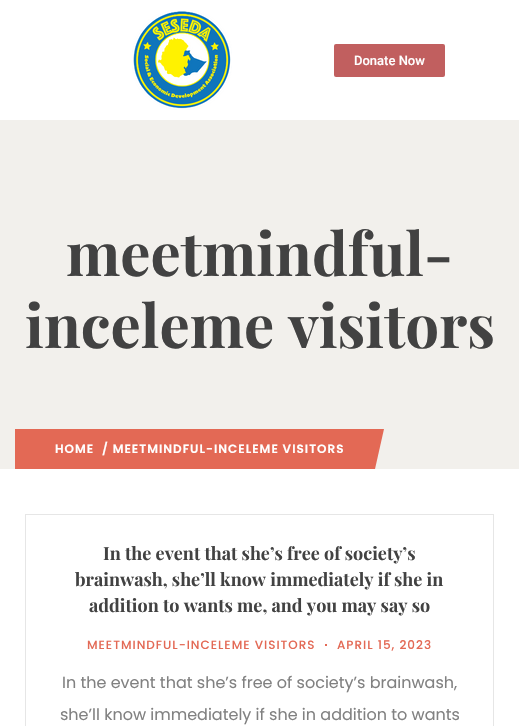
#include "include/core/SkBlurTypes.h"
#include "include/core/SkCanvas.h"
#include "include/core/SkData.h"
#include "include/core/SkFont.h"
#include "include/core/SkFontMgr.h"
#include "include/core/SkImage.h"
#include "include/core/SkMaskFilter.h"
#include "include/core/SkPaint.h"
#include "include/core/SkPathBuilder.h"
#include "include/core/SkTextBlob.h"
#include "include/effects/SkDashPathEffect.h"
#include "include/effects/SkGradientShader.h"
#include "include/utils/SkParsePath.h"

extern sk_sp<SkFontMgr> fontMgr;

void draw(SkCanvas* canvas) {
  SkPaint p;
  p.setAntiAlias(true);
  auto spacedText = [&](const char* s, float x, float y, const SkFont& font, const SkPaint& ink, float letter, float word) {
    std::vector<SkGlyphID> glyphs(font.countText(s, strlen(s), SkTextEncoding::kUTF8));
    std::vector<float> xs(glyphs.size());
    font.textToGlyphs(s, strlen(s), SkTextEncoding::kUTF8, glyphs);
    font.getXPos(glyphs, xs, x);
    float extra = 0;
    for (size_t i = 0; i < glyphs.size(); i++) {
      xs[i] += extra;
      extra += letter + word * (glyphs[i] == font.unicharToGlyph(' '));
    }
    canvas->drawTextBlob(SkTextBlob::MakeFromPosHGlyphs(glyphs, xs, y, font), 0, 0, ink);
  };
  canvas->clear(SK_ColorWHITE);
  canvas->drawImageRect(SkImages::DeferredFromEncodedData(SkData::MakeFromFileName("images/1.png")), SkRect::MakeLTRB(132, 10, 232, 110), SkSamplingOptions());
  p.setColor(SkColorSetRGB(193, 95, 95));
  canvas->drawRoundRect(SkRect::MakeLTRB(334, 44, 445, 77), 2, 2, p);
  p.setColor(SkColorSetRGB(242, 240, 236));
  canvas->drawRect(SkRect::MakeLTRB(0, 120, 519, 469), p);
  p.setColor(SkColorSetRGB(227, 105, 85));
  canvas->drawRect(SkRect::MakeLTRB(15, 429, 25, 469), p);
  canvas->drawPath(SkPathBuilder().moveTo(25, 429).lineTo(384, 429).lineTo(375, 469).lineTo(16, 469).close().detach(), p);
  p.setStyle(SkPaint::kStroke_Style);
  p.setStrokeWidth(1);
  p.setColor(SkColorSetRGB(230, 230, 230));
  canvas->drawRect(SkRect::MakeLTRB(25.5f, 514.5f, 493.5f, 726.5f), p);
  p.setStyle(SkPaint::kFill_Style);
  p.setColor(SkColorSetRGB(227, 105, 85));
  canvas->drawRect(SkRect::MakeLTRB(325, 644, 327, 646), p);
  SkFont font1(fontMgr->matchFamilyStyle("Roboto", SkFontStyle(500, SkFontStyle::kNormal_Width, SkFontStyle::kUpright_Slant)), 13);
  font1.setSubpixel(true);
  p.setColor(SK_ColorWHITE);
  canvas->drawString("Donate Now", 354, 65, font1, p);
  SkFont font2(fontMgr->matchFamilyStyle("Playfair Display", SkFontStyle::Bold()), 60);
  font2.setSubpixel(true);
  p.setColor(SkColorSetRGB(66, 66, 66));
  canvas->drawString("meetmindful-", 66, 276, font2, p);
  canvas->drawString("inceleme visitors", 25, 348, font2, p);
  SkFont font3(fontMgr->matchFamilyStyle("Poppins", SkFontStyle(600, SkFontStyle::kNormal_Width, SkFontStyle::kUpright_Slant)), 12);
  font3.setSubpixel(true);
  p.setColor(SK_ColorWHITE);
  spacedText("HOME", 55, 453, font3, p, 1, 0);
  spacedText("/ MEETMINDFUL-INCELEME VISITORS", 102, 453, font3, p, 1, 0);
  SkFont font4(fontMgr->matchFamilyStyle("Playfair Display", SkFontStyle::Bold()), 18);
  font4.setSubpixel(true);
  p.setColor(SkColorSetRGB(66, 66, 66));
  canvas->drawString("In the event that she’s free of society’s", 103, 560, font4, p);
  canvas->drawString("brainwash, she’ll know immediately if she in", 75, 586, font4, p);
  canvas->drawString("addition to wants me, and you may say so", 89, 612, font4, p);
  SkFont font5(fontMgr->matchFamilyStyle("Poppins", SkFontStyle(500, SkFontStyle::kNormal_Width, SkFontStyle::kUpright_Slant)), 12);
  font5.setSubpixel(true);
  p.setColor(SkColorSetRGB(227, 105, 85));
  spacedText("MEETMINDFUL-INCELEME VISITORS", 87, 649, font5, p, 1, 0);
  spacedText("APRIL 15, 2023", 337, 649, font5, p, 1, 0);
  SkFont font6(fontMgr->matchFamilyStyle("Poppins", SkFontStyle::Normal()), 16);
  font6.setSubpixel(true);
  p.setColor(SkColorSetRGB(129, 129, 129));
  canvas->drawString("In the event that she’s free of society’s brainwash,", 62, 688, font6, p);
  canvas->drawString("she’ll know immediately if she in addition to wants", 60, 720, font6, p);
}
